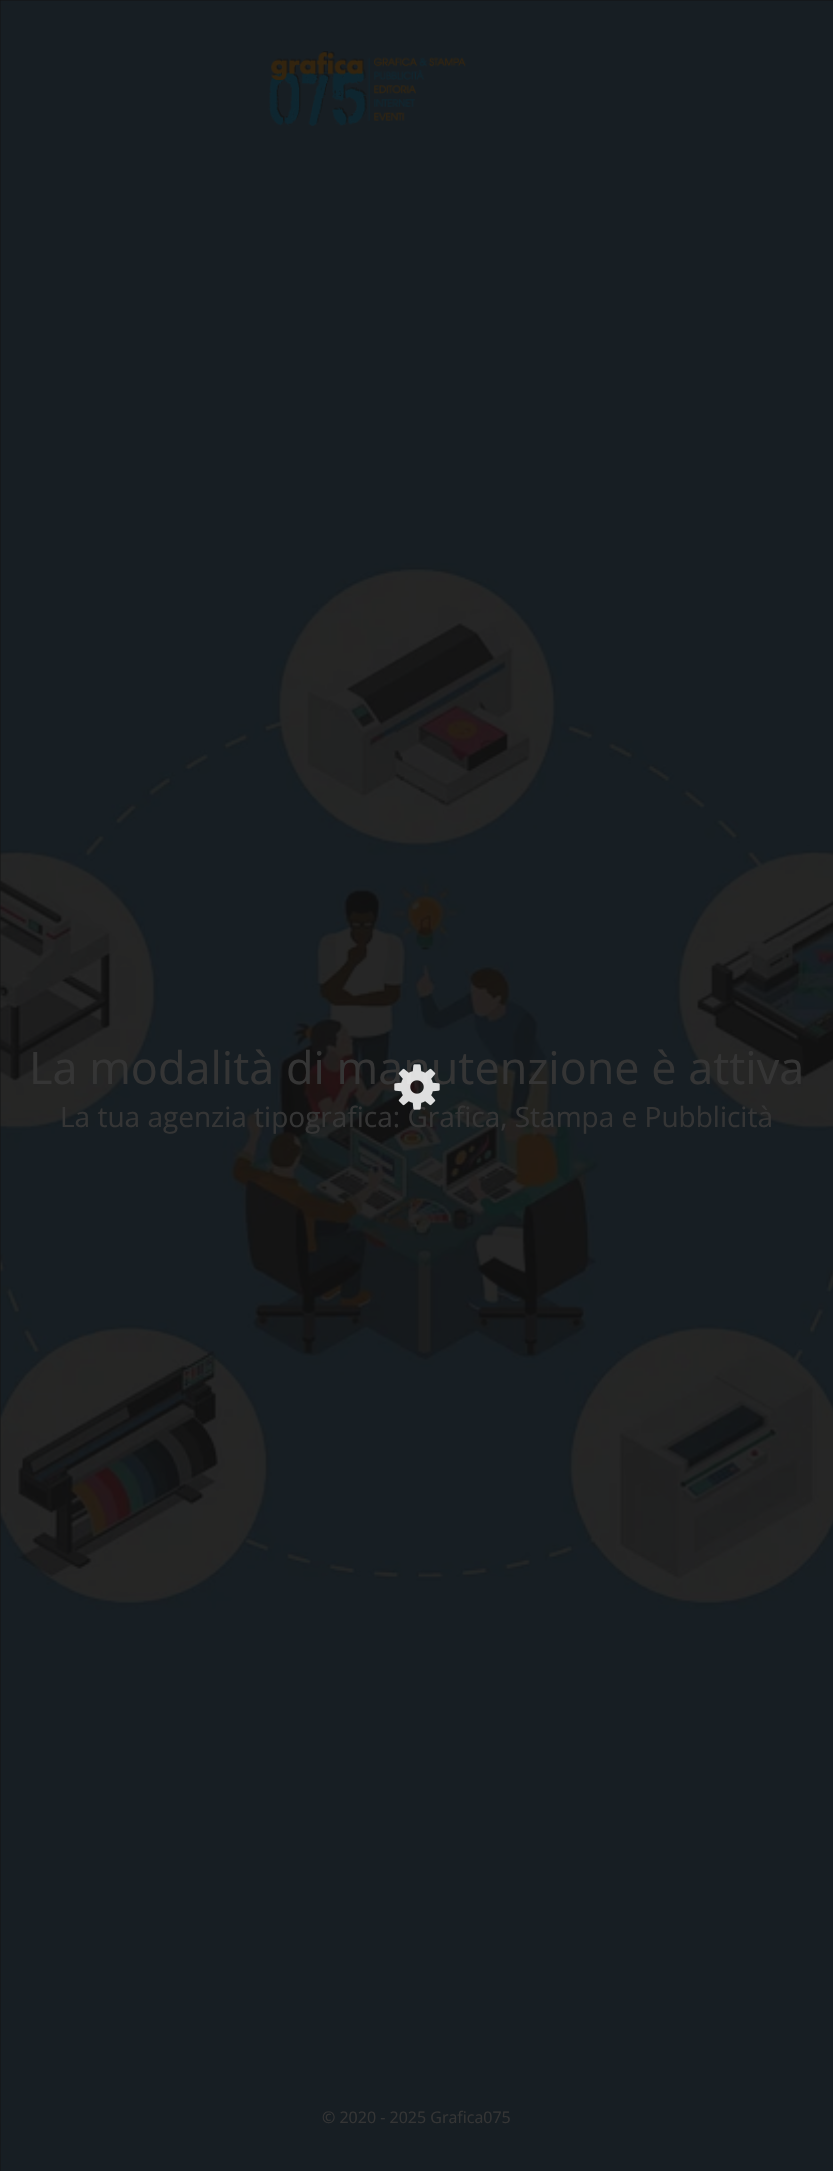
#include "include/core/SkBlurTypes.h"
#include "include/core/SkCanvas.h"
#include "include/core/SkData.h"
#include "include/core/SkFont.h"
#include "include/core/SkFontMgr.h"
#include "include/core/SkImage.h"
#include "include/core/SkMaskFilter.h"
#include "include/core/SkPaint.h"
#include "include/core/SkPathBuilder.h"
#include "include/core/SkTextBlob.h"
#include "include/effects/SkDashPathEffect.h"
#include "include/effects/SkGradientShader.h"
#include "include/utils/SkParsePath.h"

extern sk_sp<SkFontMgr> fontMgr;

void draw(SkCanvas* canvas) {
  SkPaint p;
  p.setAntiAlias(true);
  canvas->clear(SkColorSetRGB(17, 17, 17));
  canvas->drawImageRect(SkImages::DeferredFromEncodedData(SkData::MakeFromFileName("images/1.png")), SkRect::MakeLTRB(0, 0, 833, 2171), SkSamplingOptions());
  canvas->drawImageRect(SkImages::DeferredFromEncodedData(SkData::MakeFromFileName("images/2.png")), SkRect::MakeLTRB(268, 51, 466, 126), SkSamplingOptions());
  SkFont font1(fontMgr->matchFamilyStyle("Open Sans", SkFontStyle::Normal()), 45);
  font1.setSubpixel(true);
  p.setColor(SkColorSetRGB(53, 53, 53));
  canvas->drawString("La modalità di manutenzione è attiva", 29, 1084, font1, p);
  SkFont font2(fontMgr->matchFamilyStyle("Open Sans", SkFontStyle::Normal()), 28);
  font2.setSubpixel(true);
  canvas->drawString("La tua agenzia tipografica: Grafica, Stampa e Pubblicità", 60, 1127, font2, p);
  canvas->drawImageRect(SkImages::DeferredFromEncodedData(SkData::MakeFromFileName("images/3.png")), SkRect::MakeLTRB(394, 1064, 440, 1110), SkSamplingOptions());
  SkFont font3(fontMgr->matchFamilyStyle("Open Sans", SkFontStyle::Normal()), 16);
  font3.setSubpixel(true);
  canvas->drawString("© 2020 - 2025 Grafica075", 322, 2123, font3, p);
}
